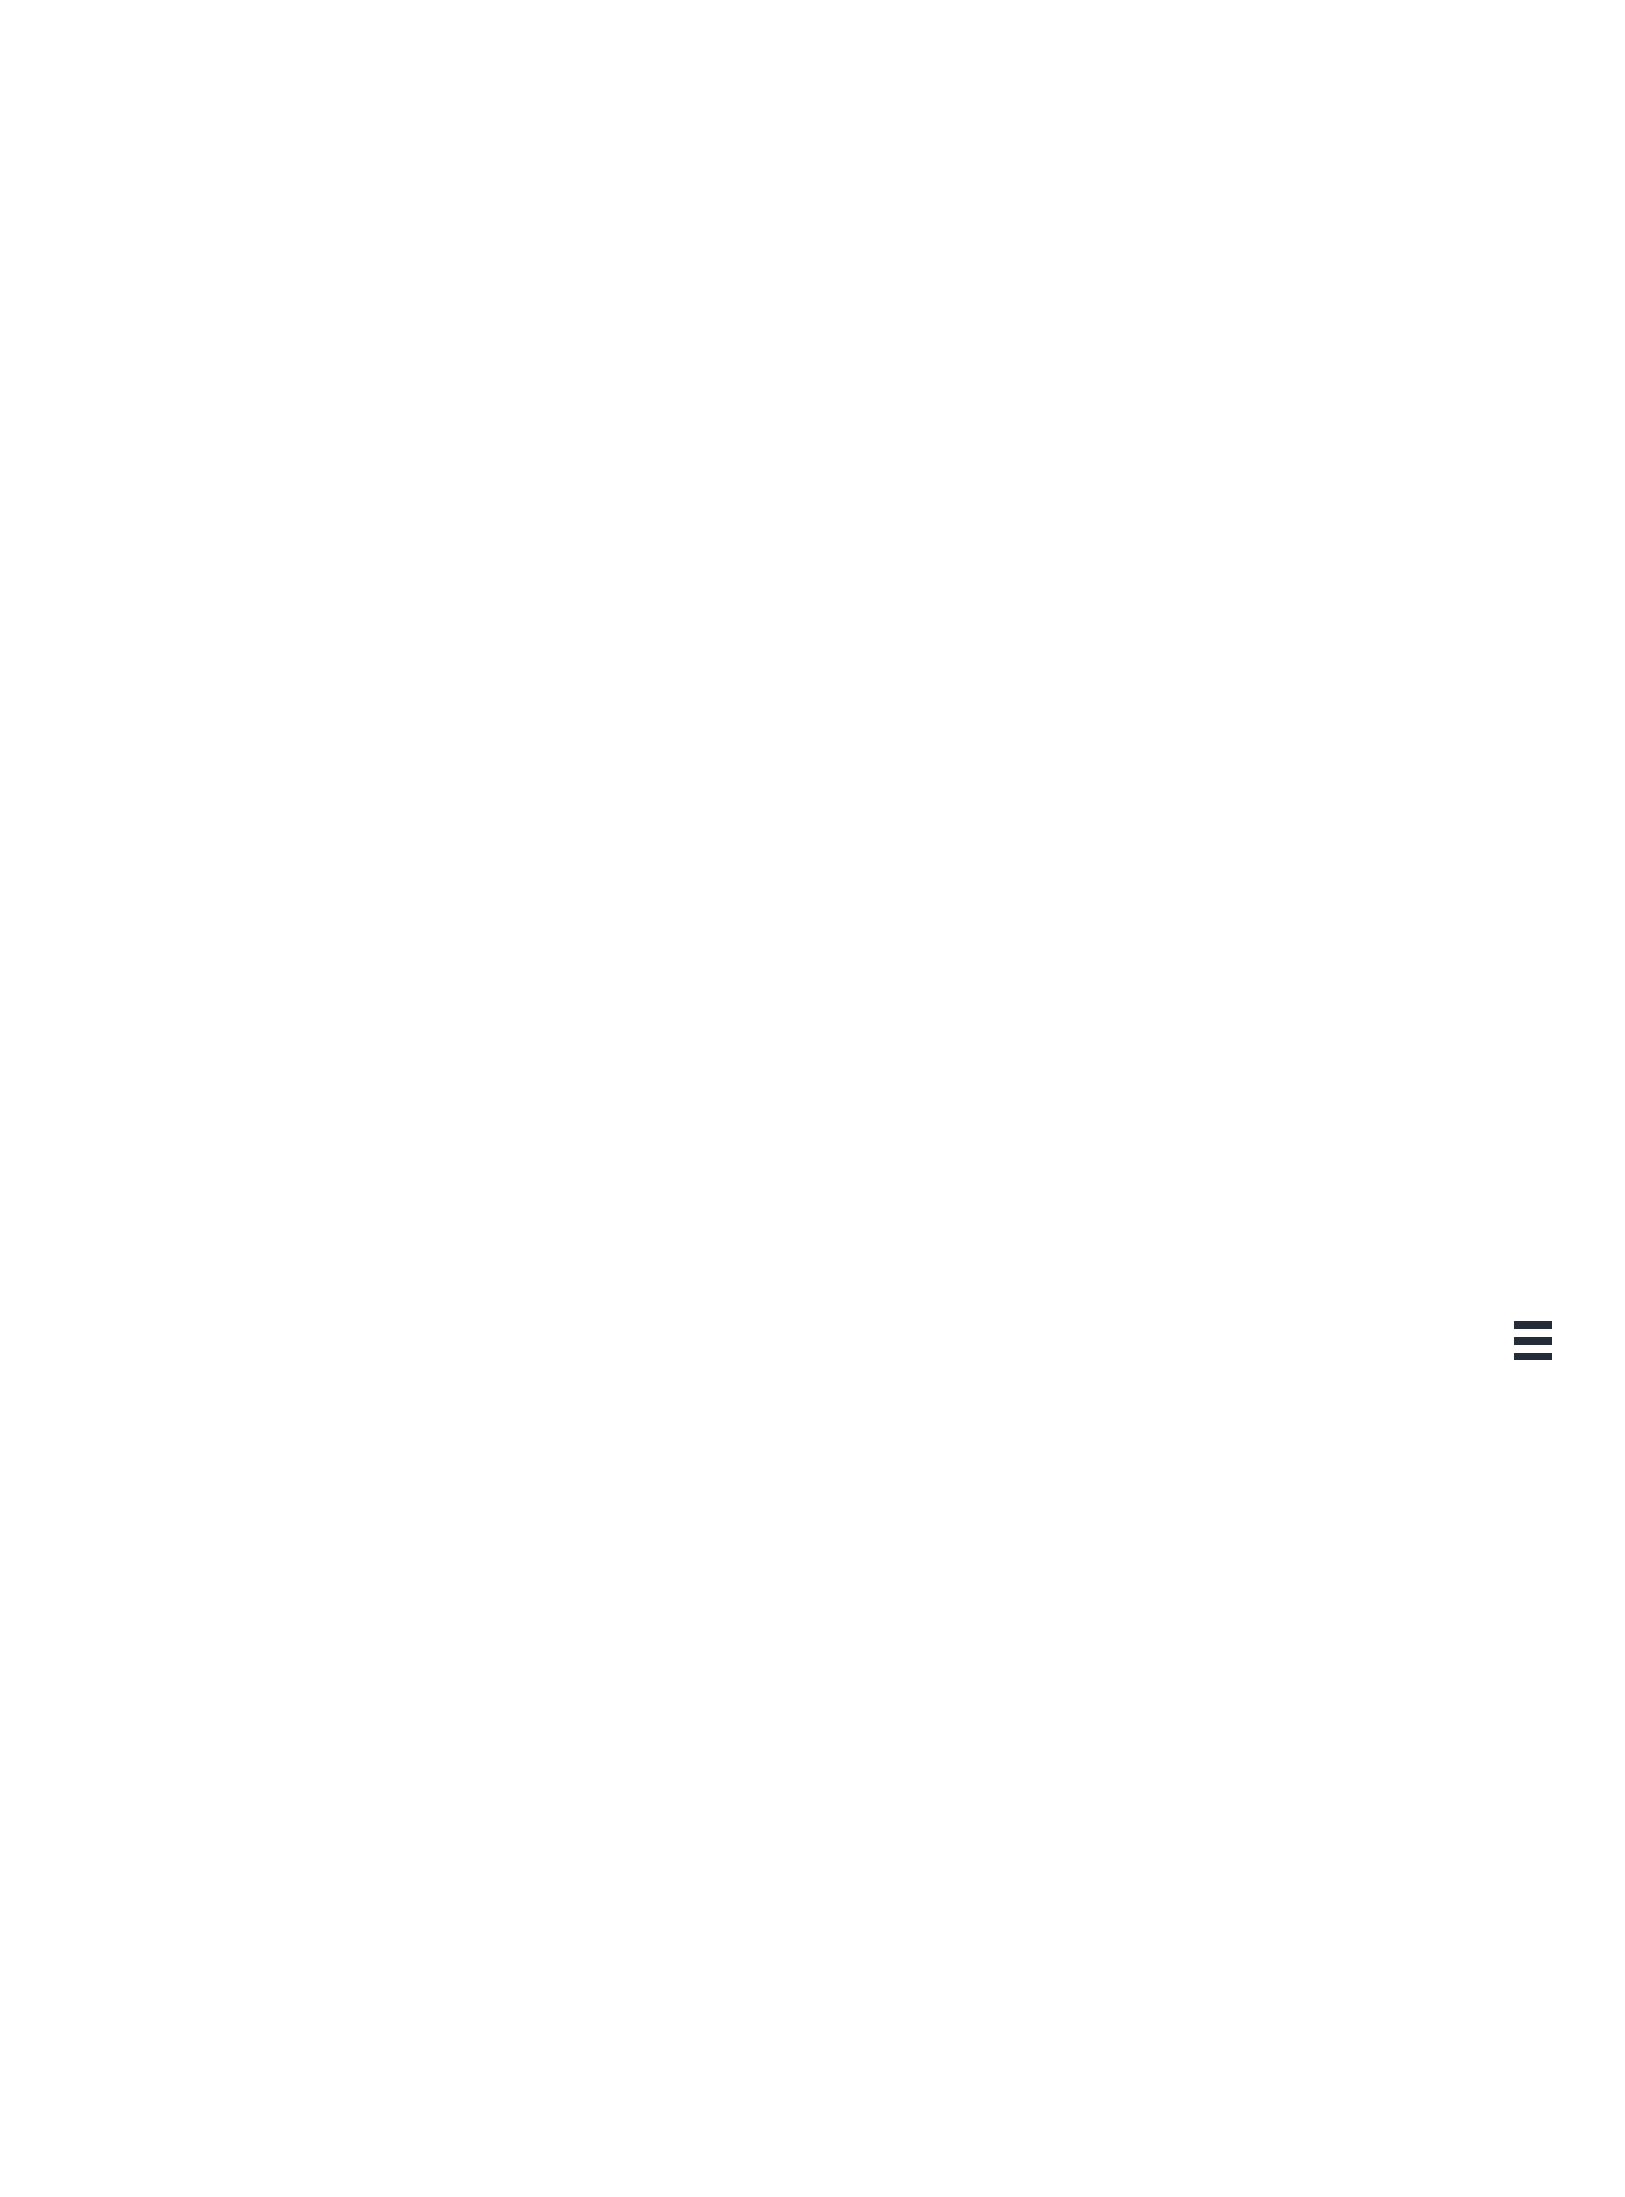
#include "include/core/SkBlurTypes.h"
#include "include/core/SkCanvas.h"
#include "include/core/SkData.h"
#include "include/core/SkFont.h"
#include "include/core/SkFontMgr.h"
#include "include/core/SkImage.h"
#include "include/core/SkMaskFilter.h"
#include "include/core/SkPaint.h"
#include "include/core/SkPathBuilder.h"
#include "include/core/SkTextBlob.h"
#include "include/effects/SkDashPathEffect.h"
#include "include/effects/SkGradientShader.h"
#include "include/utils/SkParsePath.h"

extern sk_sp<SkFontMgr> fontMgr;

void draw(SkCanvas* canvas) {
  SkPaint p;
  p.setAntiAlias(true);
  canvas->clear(SK_ColorWHITE);
  p.setColor(SkColorSetRGB(35, 44, 55));
  canvas->drawRect(SkRect::MakeLTRB(1514, 1321, 1552, 1329), p);
  canvas->drawRect(SkRect::MakeLTRB(1514, 1337, 1552, 1345), p);
  canvas->drawRect(SkRect::MakeLTRB(1514, 1353, 1552, 1360), p);
}
